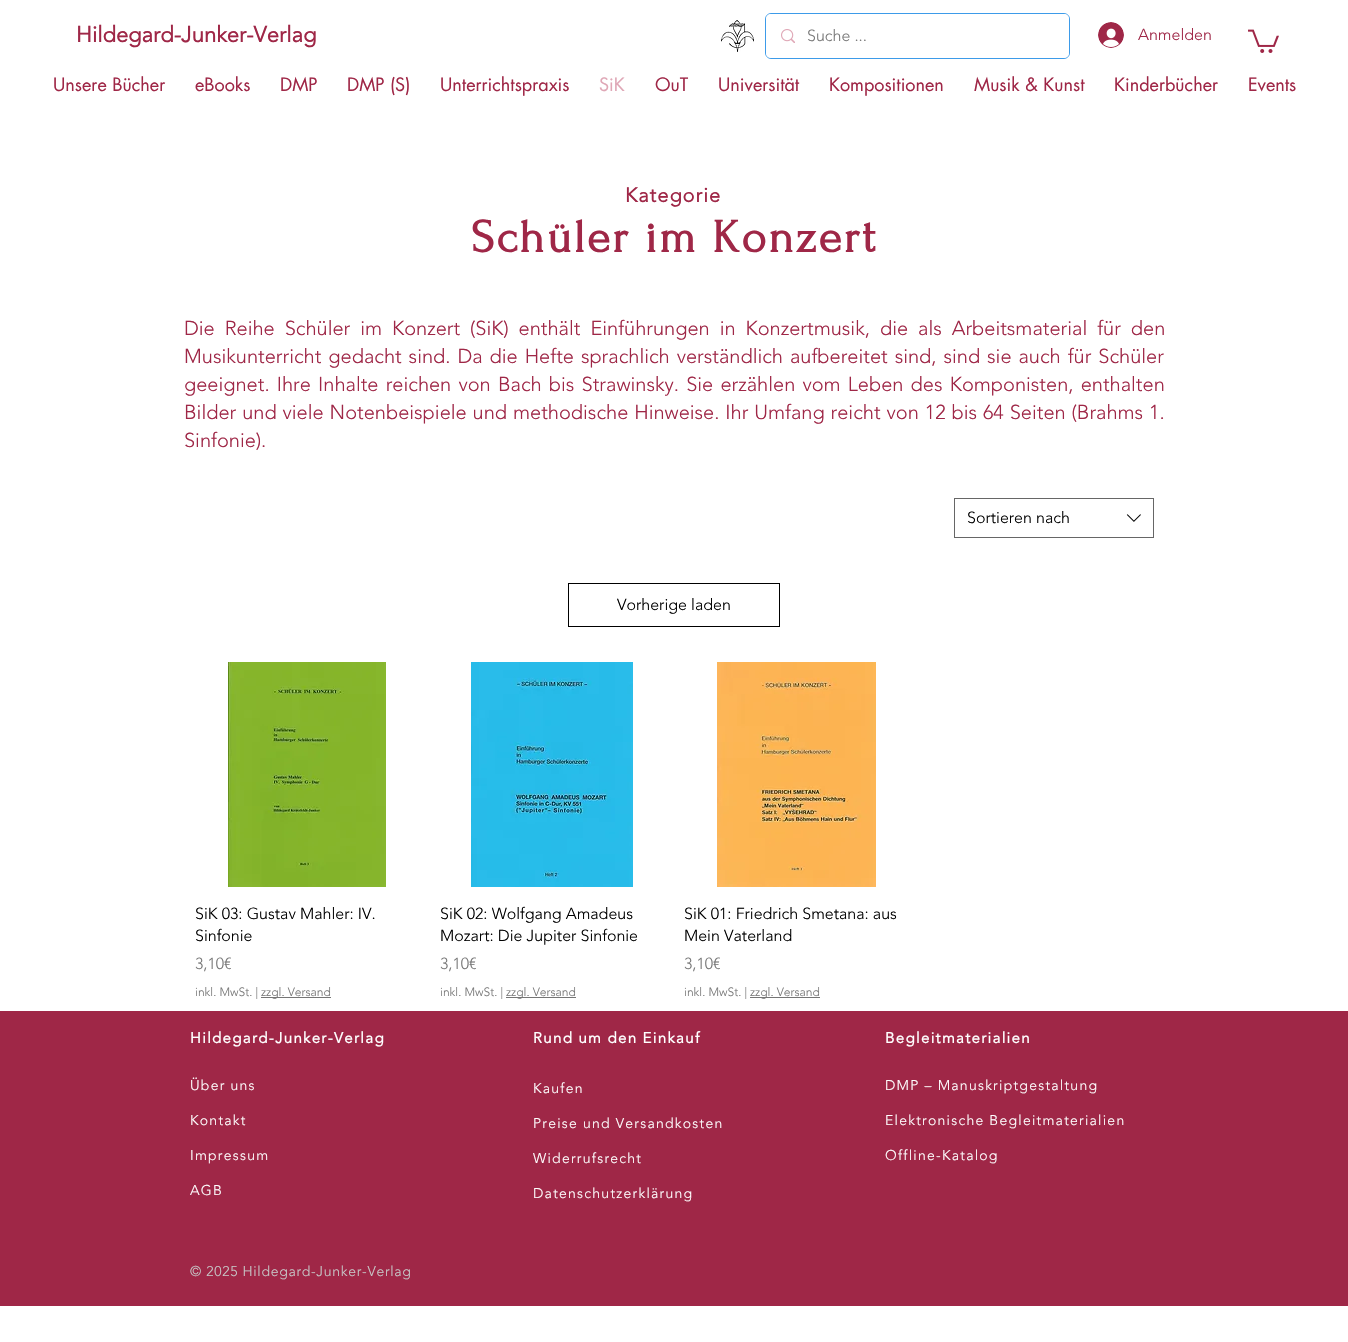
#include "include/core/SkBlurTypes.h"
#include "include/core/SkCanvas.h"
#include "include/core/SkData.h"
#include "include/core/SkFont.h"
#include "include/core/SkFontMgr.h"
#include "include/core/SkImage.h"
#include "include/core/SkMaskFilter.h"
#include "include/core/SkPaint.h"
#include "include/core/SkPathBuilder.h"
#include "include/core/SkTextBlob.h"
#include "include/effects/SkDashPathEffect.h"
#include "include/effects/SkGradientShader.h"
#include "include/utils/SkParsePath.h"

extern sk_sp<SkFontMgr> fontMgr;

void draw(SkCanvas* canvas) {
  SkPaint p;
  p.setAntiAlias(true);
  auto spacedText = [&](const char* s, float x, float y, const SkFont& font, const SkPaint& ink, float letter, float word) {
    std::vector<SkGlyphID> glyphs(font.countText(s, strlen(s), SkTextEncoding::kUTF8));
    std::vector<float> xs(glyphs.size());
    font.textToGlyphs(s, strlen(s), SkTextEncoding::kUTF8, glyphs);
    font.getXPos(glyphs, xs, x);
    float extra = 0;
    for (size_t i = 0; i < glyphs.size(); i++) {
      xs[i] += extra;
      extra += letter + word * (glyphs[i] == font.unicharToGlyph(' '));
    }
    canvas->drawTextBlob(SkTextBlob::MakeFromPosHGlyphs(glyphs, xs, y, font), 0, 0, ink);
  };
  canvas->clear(SK_ColorWHITE);
  canvas->drawImageRect(SkImages::DeferredFromEncodedData(SkData::MakeFromFileName("images/1.png")), SkRect::MakeLTRB(721, 20, 754, 52), SkSamplingOptions());
  p.setStyle(SkPaint::kStroke_Style);
  p.setStrokeWidth(1);
  p.setColor(SkColorSetRGB(61, 155, 233));
  canvas->drawRoundRect(SkRect::MakeLTRB(765.5f, 13.5f, 1069.5f, 58.5f), 5.5f, 5.5f, p);
  p.setStyle(SkPaint::kFill_Style);
  p.setColor(SK_ColorWHITE);
  canvas->drawRoundRect(SkRect::MakeLTRB(766, 14, 1069, 58), 5, 5, p);
  canvas->drawImageRect(SkImages::DeferredFromEncodedData(SkData::MakeFromFileName("images/2.png")), SkRect::MakeLTRB(781, 29, 795, 43), SkSamplingOptions());
  canvas->drawImageRect(SkImages::DeferredFromEncodedData(SkData::MakeFromFileName("images/3.png")), SkRect::MakeLTRB(1098, 22, 1124, 48), SkSamplingOptions());
  canvas->drawImageRect(SkImages::DeferredFromEncodedData(SkData::MakeFromFileName("images/4.png")), SkRect::MakeLTRB(1248, 29, 1279, 53), SkSamplingOptions());
  p.setStyle(SkPaint::kStroke_Style);
  p.setColor(SkColorSetRGB(102, 102, 102));
  canvas->drawRect(SkRect::MakeLTRB(954.5f, 498.5f, 1153.5f, 537.5f), p);
  canvas->drawImageRect(SkImages::DeferredFromEncodedData(SkData::MakeFromFileName("images/5.png")), SkRect::MakeLTRB(1126, 514, 1141, 522), SkSamplingOptions());
  p.setColor(SK_ColorBLACK);
  canvas->drawRect(SkRect::MakeLTRB(568.5f, 583.5f, 779.5f, 626.5f), p);
  canvas->drawImageRect(SkImages::DeferredFromEncodedData(SkData::MakeFromFileName("images/6.png")), SkRect::MakeLTRB(228, 662, 386, 887), SkSamplingOptions());
  p.setStyle(SkPaint::kFill_Style);
  p.setColor(SkColorSetRGB(117, 117, 117));
  canvas->drawRect(SkRect::MakeLTRB(261, 997, 331, 998), p);
  canvas->drawImageRect(SkImages::DeferredFromEncodedData(SkData::MakeFromFileName("images/7.png")), SkRect::MakeLTRB(471, 662, 633, 887), SkSamplingOptions());
  canvas->drawRect(SkRect::MakeLTRB(506, 997, 576, 998), p);
  canvas->drawImageRect(SkImages::DeferredFromEncodedData(SkData::MakeFromFileName("images/8.png")), SkRect::MakeLTRB(717, 662, 876, 887), SkSamplingOptions());
  canvas->drawRect(SkRect::MakeLTRB(750, 997, 820, 998), p);
  p.setColor(SkColorSetRGB(159, 39, 71));
  canvas->drawRect(SkRect::MakeLTRB(0, 1011, 1348, 1306), p);
  SkFont font1(fontMgr->matchFamilyStyle("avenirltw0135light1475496", SkFontStyle::Bold()), 22);
  font1.setSubpixel(true);
  canvas->drawString("Hildegard-Junker-Verlag", 76, 42, font1, p);
  SkFont font2(fontMgr->matchFamilyStyle("avenirltw0135light1475496", SkFontStyle(300, SkFontStyle::kNormal_Width, SkFontStyle::kUpright_Slant)), 16);
  font2.setSubpixel(true);
  p.setColor(SkColorSetRGB(120, 120, 120));
  canvas->drawString("Suche ...", 807, 41, font2, p);
  p.setColor(SkColorSetRGB(159, 39, 71));
  canvas->drawString("Anmelden", 1138, 40, font2, p);
  SkFont font3(fontMgr->matchFamilyStyle("futura", SkFontStyle::Normal()), 18);
  font3.setSubpixel(true);
  canvas->drawString("Unsere Bücher", 53, 91, font3, p);
  canvas->drawString("eBooks", 195, 91, font3, p);
  canvas->drawString("DMP", 280, 91, font3, p);
  canvas->drawString("DMP (S)", 347, 91, font3, p);
  canvas->drawString("Unterrichtspraxis", 440, 91, font3, p);
  p.setColor(SkColorSetRGB(223, 167, 182));
  canvas->drawString("SiK", 599, 91, font3, p);
  p.setColor(SkColorSetRGB(159, 39, 71));
  canvas->drawString("OuT", 655, 91, font3, p);
  canvas->drawString("Universität", 718, 91, font3, p);
  canvas->drawString("Kompositionen", 829, 91, font3, p);
  canvas->drawString("Musik & Kunst", 974, 91, font3, p);
  canvas->drawString("Kinderbücher", 1114, 91, font3, p);
  canvas->drawString("Events", 1248, 91, font3, p);
  SkFont font4(fontMgr->matchFamilyStyle("avenirltw0135light1475496", SkFontStyle::Bold()), 20);
  font4.setSubpixel(true);
  spacedText("Kategorie", 625, 202, font4, p, 1, 0);
  SkFont font5(fontMgr->matchFamilyStyle("Forum", SkFontStyle::Bold()), 47);
  font5.setSubpixel(true);
  spacedText("Schüler im Konzert", 471, 252, font5, p, 2.4f, 0);
  SkFont font6(fontMgr->matchFamilyStyle("avenirltw0135light1475496", SkFontStyle(300, SkFontStyle::kNormal_Width, SkFontStyle::kUpright_Slant)), 20);
  font6.setSubpixel(true);
  spacedText("Die Reihe Schüler im Konzert (SiK) enthält Einführungen in Konzertmusik, die als Arbeitsmaterial für den", 184, 335, font6, p, 0, 4.75f);
  spacedText("Musikunterricht gedacht sind. Da die Hefte sprachlich verständlich aufbereitet sind, sind sie auch für Schüler", 184, 363, font6, p, 0, 1.75f);
  spacedText("geeignet. Ihre Inhalte reichen von Bach bis Strawinsky. Sie erzählen vom Leben des Komponisten, enthalten", 184, 391, font6, p, 0, 2);
  spacedText("Bilder und viele Notenbeispiele und methodische Hinweise. Ihr Umfang reicht von 12 bis 64 Seiten (Brahms 1.", 184, 419, font6, p, 0, 0.75f);
  canvas->drawString("Sinfonie).", 184, 447, font6, p);
  p.setColor(SK_ColorBLACK);
  canvas->drawString("Sortieren nach", 967, 523, font2, p);
  canvas->drawString("Vorherige laden", 617, 610, font2, p);
  canvas->drawString("SiK 03: Gustav Mahler: IV.", 195, 919, font2, p);
  canvas->drawString("Sinfonie", 195, 941, font2, p);
  p.setColor(SkColorSetRGB(120, 120, 120));
  canvas->drawString("3,10€", 195, 969, font2, p);
  SkFont font7(fontMgr->matchFamilyStyle("avenirltw0135light1475496", SkFontStyle(300, SkFontStyle::kNormal_Width, SkFontStyle::kUpright_Slant)), 12);
  font7.setSubpixel(true);
  canvas->drawString("inkl. MwSt. |", 195, 996, font7, p);
  canvas->drawString("zzgl. Versand", 261, 996, font7, p);
  p.setColor(SK_ColorBLACK);
  canvas->drawString("SiK 02: Wolfgang Amadeus", 440, 919, font2, p);
  canvas->drawString("Mozart: Die Jupiter Sinfonie", 440, 941, font2, p);
  p.setColor(SkColorSetRGB(120, 120, 120));
  canvas->drawString("3,10€", 440, 969, font2, p);
  canvas->drawString("inkl. MwSt. |", 440, 996, font7, p);
  canvas->drawString("zzgl. Versand", 506, 996, font7, p);
  p.setColor(SK_ColorBLACK);
  canvas->drawString("SiK 01: Friedrich Smetana: aus", 684, 919, font2, p);
  canvas->drawString("Mein Vaterland", 684, 941, font2, p);
  p.setColor(SkColorSetRGB(120, 120, 120));
  canvas->drawString("3,10€", 684, 969, font2, p);
  canvas->drawString("inkl. MwSt. |", 684, 996, font7, p);
  canvas->drawString("zzgl. Versand", 750, 996, font7, p);
  SkFont font8(fontMgr->matchFamilyStyle("avenirltw0135light1475496", SkFontStyle::Bold()), 15);
  font8.setSubpixel(true);
  p.setColor(SK_ColorWHITE);
  spacedText("Hildegard-Junker-Verlag", 190, 1043, font8, p, 1.35f, 0);
  spacedText("Rund um den Einkauf", 533, 1043, font8, p, 1.35f, 0);
  spacedText("Begleitmaterialien", 885, 1043, font8, p, 1.35f, 0);
  SkFont font9(fontMgr->matchFamilyStyle("avenirltw0135light1475496", SkFontStyle(300, SkFontStyle::kNormal_Width, SkFontStyle::kUpright_Slant)), 14);
  font9.setSubpixel(true);
  spacedText("Über uns", 190, 1090, font9, p, 1.25f, 0);
  spacedText("Kontakt", 190, 1125, font9, p, 1.25f, 0);
  spacedText("Impressum", 190, 1160, font9, p, 1.25f, 0);
  spacedText("AGB", 190, 1195, font9, p, 1.25f, 0);
  spacedText("Kaufen", 533, 1093, font9, p, 1.25f, 0);
  spacedText("Preise und Versandkosten", 533, 1128, font9, p, 1.25f, 0);
  spacedText("Widerrufsrecht", 533, 1163, font9, p, 1.25f, 0);
  spacedText("Datenschutzerklärung", 533, 1198, font9, p, 1.25f, 0);
  spacedText("DMP – Manuskriptgestaltung", 885, 1090, font9, p, 1.25f, 0);
  spacedText("Elektronische Begleitmaterialien", 885, 1125, font9, p, 1.25f, 0);
  spacedText("Offline-Katalog", 885, 1160, font9, p, 1.25f, 0);
  p.setColor(SkColorSetRGB(199, 199, 199));
  spacedText("© 2025 Hildegard-Junker-Verlag", 190, 1276, font9, p, 0.7f, 0);
}
